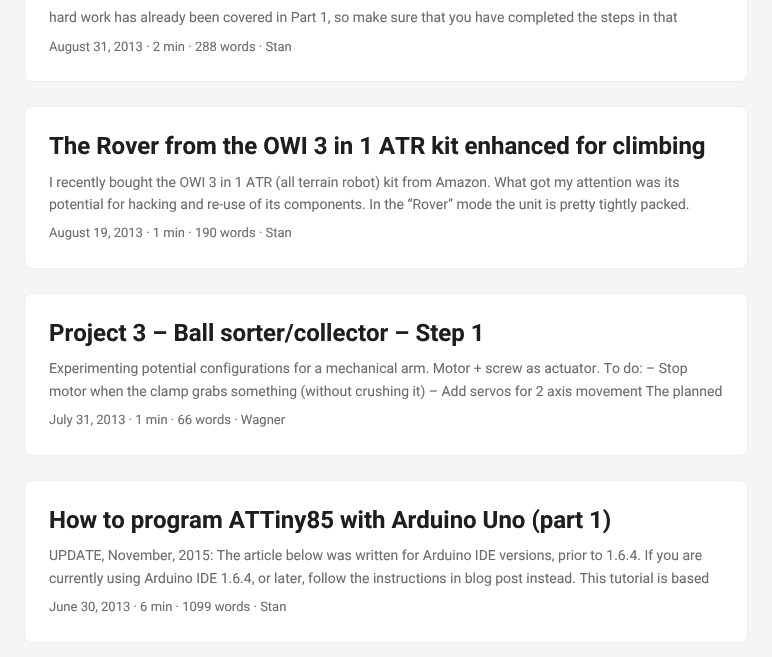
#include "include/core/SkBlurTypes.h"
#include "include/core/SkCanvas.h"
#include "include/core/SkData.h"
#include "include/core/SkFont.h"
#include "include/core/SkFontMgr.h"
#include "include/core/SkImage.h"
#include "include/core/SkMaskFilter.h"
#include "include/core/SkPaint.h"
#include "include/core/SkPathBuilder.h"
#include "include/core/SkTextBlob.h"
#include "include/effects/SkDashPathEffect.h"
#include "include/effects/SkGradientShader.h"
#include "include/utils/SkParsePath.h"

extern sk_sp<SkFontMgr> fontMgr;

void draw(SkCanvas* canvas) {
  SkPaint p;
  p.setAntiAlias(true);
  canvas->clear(SkColorSetRGB(245, 245, 245));
  p.setColor(SK_ColorWHITE);
  canvas->drawRoundRect(SkRect::MakeLTRB(24.5f, -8.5f, 747.5f, 81.5f), 7.5f, 7.5f, p);
  p.setStyle(SkPaint::kStroke_Style);
  p.setStrokeWidth(1);
  p.setColor(SkColorSetRGB(238, 238, 238));
  canvas->drawRoundRect(SkRect::MakeLTRB(24.5f, -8.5f, 747.5f, 81.5f), 7.5f, 7.5f, p);
  p.setStyle(SkPaint::kFill_Style);
  p.setColor(SK_ColorWHITE);
  canvas->drawRoundRect(SkRect::MakeLTRB(24.5f, 106.5f, 747.5f, 268.5f), 7.5f, 7.5f, p);
  p.setStyle(SkPaint::kStroke_Style);
  p.setColor(SkColorSetRGB(238, 238, 238));
  canvas->drawRoundRect(SkRect::MakeLTRB(24.5f, 106.5f, 747.5f, 268.5f), 7.5f, 7.5f, p);
  p.setStyle(SkPaint::kFill_Style);
  p.setColor(SK_ColorWHITE);
  canvas->drawRoundRect(SkRect::MakeLTRB(24.5f, 293.5f, 747.5f, 455.5f), 7.5f, 7.5f, p);
  p.setStyle(SkPaint::kStroke_Style);
  p.setColor(SkColorSetRGB(238, 238, 238));
  canvas->drawRoundRect(SkRect::MakeLTRB(24.5f, 293.5f, 747.5f, 455.5f), 7.5f, 7.5f, p);
  p.setStyle(SkPaint::kFill_Style);
  p.setColor(SK_ColorWHITE);
  canvas->drawRoundRect(SkRect::MakeLTRB(24.5f, 480.5f, 747.5f, 642.5f), 7.5f, 7.5f, p);
  p.setStyle(SkPaint::kStroke_Style);
  p.setColor(SkColorSetRGB(238, 238, 238));
  canvas->drawRoundRect(SkRect::MakeLTRB(24.5f, 480.5f, 747.5f, 642.5f), 7.5f, 7.5f, p);
  SkFont font1(fontMgr->matchFamilyStyle("Roboto", SkFontStyle::Normal()), 14);
  font1.setSubpixel(true);
  p.setStyle(SkPaint::kFill_Style);
  p.setColor(SkColorSetRGB(108, 108, 108));
  canvas->drawString("hard work has already been covered in Part 1, so make sure that you have completed the steps in that", 49, 22, font1, p);
  SkFont font2(fontMgr->matchFamilyStyle("Roboto", SkFontStyle::Normal()), 13);
  font2.setSubpixel(true);
  canvas->drawString("August 31, 2013 · 2 min · 288 words · Stan", 49, 51, font2, p);
  SkFont font3(fontMgr->matchFamilyStyle("Roboto", SkFontStyle::Bold()), 24);
  font3.setSubpixel(true);
  p.setColor(SkColorSetRGB(30, 30, 30));
  canvas->drawString("The Rover from the OWI 3 in 1 ATR kit enhanced for climbing", 49, 154, font3, p);
  p.setColor(SkColorSetRGB(108, 108, 108));
  canvas->drawString("I recently bought the OWI 3 in 1 ATR (all terrain robot) kit from Amazon. What got my attention was its", 49, 187, font1, p);
  canvas->drawString("potential for hacking and re-use of its components. In the “Rover” mode the unit is pretty tightly packed.", 49, 209, font1, p);
  canvas->drawString("August 19, 2013 · 1 min · 190 words · Stan", 49, 237, font2, p);
  p.setColor(SkColorSetRGB(30, 30, 30));
  canvas->drawString("Project 3 – Ball sorter/collector – Step 1", 49, 341, font3, p);
  p.setColor(SkColorSetRGB(108, 108, 108));
  canvas->drawString("Experimenting potential configurations for a mechanical arm. Motor + screw as actuator. To do: – Stop", 49, 373, font1, p);
  canvas->drawString("motor when the clamp grabs something (without crushing it) – Add servos for 2 axis movement The planned", 49, 396, font1, p);
  canvas->drawString("July 31, 2013 · 1 min · 66 words · Wagner", 49, 424, font2, p);
  p.setColor(SkColorSetRGB(30, 30, 30));
  canvas->drawString("How to program ATTiny85 with Arduino Uno (part 1)", 49, 528, font3, p);
  p.setColor(SkColorSetRGB(108, 108, 108));
  canvas->drawString("UPDATE, November, 2015: The article below was written for Arduino IDE versions, prior to 1.6.4. If you are", 49, 560, font1, p);
  canvas->drawString("currently using Arduino IDE 1.6.4, or later, follow the instructions in blog post instead. This tutorial is based", 49, 583, font1, p);
  canvas->drawString("June 30, 2013 · 6 min · 1099 words · Stan", 49, 611, font2, p);
}
